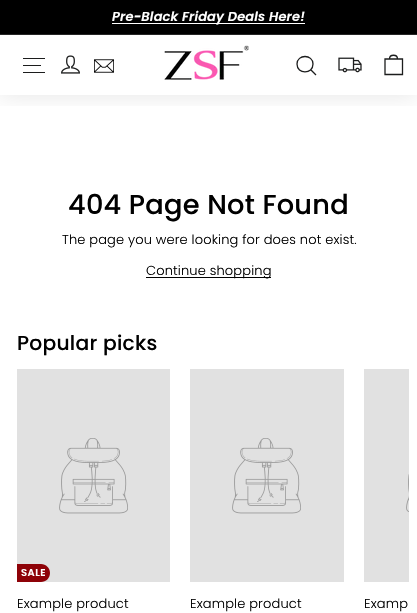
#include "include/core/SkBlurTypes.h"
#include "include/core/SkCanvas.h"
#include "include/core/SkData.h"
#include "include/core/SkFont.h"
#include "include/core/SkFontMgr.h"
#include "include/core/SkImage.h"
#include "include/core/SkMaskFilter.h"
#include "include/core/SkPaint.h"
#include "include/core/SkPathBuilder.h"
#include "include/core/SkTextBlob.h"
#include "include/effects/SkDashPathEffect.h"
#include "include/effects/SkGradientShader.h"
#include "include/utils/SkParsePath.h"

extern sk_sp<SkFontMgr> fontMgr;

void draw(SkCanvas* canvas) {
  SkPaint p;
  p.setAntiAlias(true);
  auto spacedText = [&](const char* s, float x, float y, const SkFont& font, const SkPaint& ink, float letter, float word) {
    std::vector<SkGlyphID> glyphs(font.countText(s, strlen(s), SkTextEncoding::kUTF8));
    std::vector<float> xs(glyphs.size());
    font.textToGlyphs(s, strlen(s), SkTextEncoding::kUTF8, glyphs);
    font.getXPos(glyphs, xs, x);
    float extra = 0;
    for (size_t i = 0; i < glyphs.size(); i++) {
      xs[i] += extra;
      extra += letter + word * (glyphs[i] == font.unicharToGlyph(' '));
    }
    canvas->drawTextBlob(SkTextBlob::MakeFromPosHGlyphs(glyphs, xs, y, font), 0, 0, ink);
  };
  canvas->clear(SK_ColorWHITE);
  canvas->save();
  canvas->clipRect(SkRect::MakeLTRB(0, 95, 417, 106));
  p.setColor(SkColorSetARGB(26, 0, 0, 0));
  p.setMaskFilter(SkMaskFilter::MakeBlur(kNormal_SkBlurStyle, 12.5f));
  canvas->drawRect(SkRect::MakeLTRB(0, 35, 417, 95), p);
  p.setMaskFilter(nullptr);
  canvas->restore();
  p.setColor(SkColorSetRGB(28, 29, 29));
  canvas->drawRect(SkRect::MakeLTRB(23, 58, 45, 59), p);
  canvas->drawRect(SkRect::MakeLTRB(23, 65, 41, 66), p);
  canvas->drawRect(SkRect::MakeLTRB(23, 72, 45, 73), p);
  canvas->drawImageRect(SkImages::DeferredFromEncodedData(SkData::MakeFromFileName("images/1.png")), SkRect::MakeLTRB(61, 55, 80, 74), SkSamplingOptions());
  canvas->drawImageRect(SkImages::DeferredFromEncodedData(SkData::MakeFromFileName("images/2.png")), SkRect::MakeLTRB(94, 59, 114, 73), SkSamplingOptions());
  canvas->drawImageRect(SkImages::DeferredFromEncodedData(SkData::MakeFromFileName("images/3.png")), SkRect::MakeLTRB(164, 45, 249, 80), SkSamplingOptions());
  p.setStyle(SkPaint::kStroke_Style);
  p.setStrokeWidth(1.3f);
  canvas->drawPath(SkPathBuilder().moveTo(313, 64).cubicTo(313, 74.5f, 297, 74.5f, 297, 64).cubicTo(297, 54, 313, 54, 313, 64).close().moveTo(316, 75).lineTo(310.5f, 69.5f).detach(), p);
  canvas->drawImageRect(SkImages::DeferredFromEncodedData(SkData::MakeFromFileName("images/4.png")), SkRect::MakeLTRB(338, 57, 362, 73), SkSamplingOptions());
  canvas->drawPath(SkPathBuilder().moveTo(389.5f, 59).cubicTo(389.5f, 54, 397.5f, 54, 397.5f, 59).moveTo(385, 59).lineTo(402.5f, 59).lineTo(402.5f, 74.5f).lineTo(385, 74.5f).close().detach(), p);
  p.setStyle(SkPaint::kFill_Style);
  p.setColor(SK_ColorBLACK);
  canvas->drawRect(SkRect::MakeLTRB(0, 0, 417, 34), p);
  p.setColor(SK_ColorWHITE);
  canvas->drawRect(SkRect::MakeLTRB(112, 23, 305, 24), p);
  p.setColor(SkColorSetRGB(38, 38, 38));
  canvas->drawRect(SkRect::MakeLTRB(0, 34, 417, 35), p);
  p.setColor(SK_ColorBLACK);
  canvas->drawRect(SkRect::MakeLTRB(146, 277, 271, 278), p);
  p.setColor(SkColorSetRGB(225, 225, 225));
  canvas->drawRect(SkRect::MakeLTRB(17, 369, 170, 582), p);
  canvas->drawImageRect(SkImages::DeferredFromEncodedData(SkData::MakeFromFileName("images/5.png")), SkRect::MakeLTRB(59, 438, 128, 514), SkSamplingOptions());
  p.setColor(SkColorSetRGB(142, 2, 8));
  canvas->drawPath(SkPathBuilder().moveTo(17, 564).lineTo(41, 564).cubicTo(46, 564, 50, 568, 50, 573).cubicTo(50, 578, 46, 582, 41, 582).lineTo(17, 582).close().detach(), p);
  p.setColor(SkColorSetRGB(225, 225, 225));
  canvas->drawRect(SkRect::MakeLTRB(190, 369, 344, 582), p);
  canvas->drawImageRect(SkImages::DeferredFromEncodedData(SkData::MakeFromFileName("images/5.png")), SkRect::MakeLTRB(232, 438, 301, 514), SkSamplingOptions());
  canvas->drawRect(SkRect::MakeLTRB(364, 369, 409, 582), p);
  canvas->drawImageRect(SkImages::DeferredFromEncodedData(SkData::MakeFromFileName("images/6.png")), SkRect::MakeLTRB(406, 474, 409, 512), SkSamplingOptions());
  SkFont font1(fontMgr->matchFamilyStyle("Poppins", SkFontStyle(600, SkFontStyle::kNormal_Width, SkFontStyle::kItalic_Slant)), 13);
  font1.setSubpixel(true);
  p.setColor(SK_ColorWHITE);
  spacedText("Pre-Black Friday Deals Here!", 112, 21, font1, p, 0.15f, 0);
  SkFont font2(fontMgr->matchFamilyStyle("Poppins", SkFontStyle(500, SkFontStyle::kNormal_Width, SkFontStyle::kUpright_Slant)), 27.25f);
  font2.setSubpixel(true);
  p.setColor(SK_ColorBLACK);
  spacedText("404 Page Not Found", 68, 214, font2, p, 0.25f, 0);
  SkFont font3(fontMgr->matchFamilyStyle("Poppins", SkFontStyle(300, SkFontStyle::kNormal_Width, SkFontStyle::kUpright_Slant)), 13);
  font3.setSubpixel(true);
  spacedText("The page you were looking for does not exist.", 62, 244, font3, p, 0.15f, 0);
  spacedText("Continue shopping", 146, 275, font3, p, 0.15f, 0);
  SkFont font4(fontMgr->matchFamilyStyle("Poppins", SkFontStyle(500, SkFontStyle::kNormal_Width, SkFontStyle::kUpright_Slant)), 20.25f);
  font4.setSubpixel(true);
  spacedText("Popular picks", 17, 350, font4, p, 0.25f, 0);
  SkFont font5(fontMgr->matchFamilyStyle("Poppins", SkFontStyle(600, SkFontStyle::kNormal_Width, SkFontStyle::kUpright_Slant)), 10);
  font5.setSubpixel(true);
  p.setColor(SK_ColorWHITE);
  spacedText("SALE", 21, 576, font5, p, 0.5f, 0);
  p.setColor(SK_ColorBLACK);
  spacedText("Example product", 17, 608, font3, p, 0.15f, 0);
  spacedText("Example product", 190, 608, font3, p, 0.15f, 0);
  spacedText("Examp", 364, 608, font3, p, 0.15f, 0);
}
